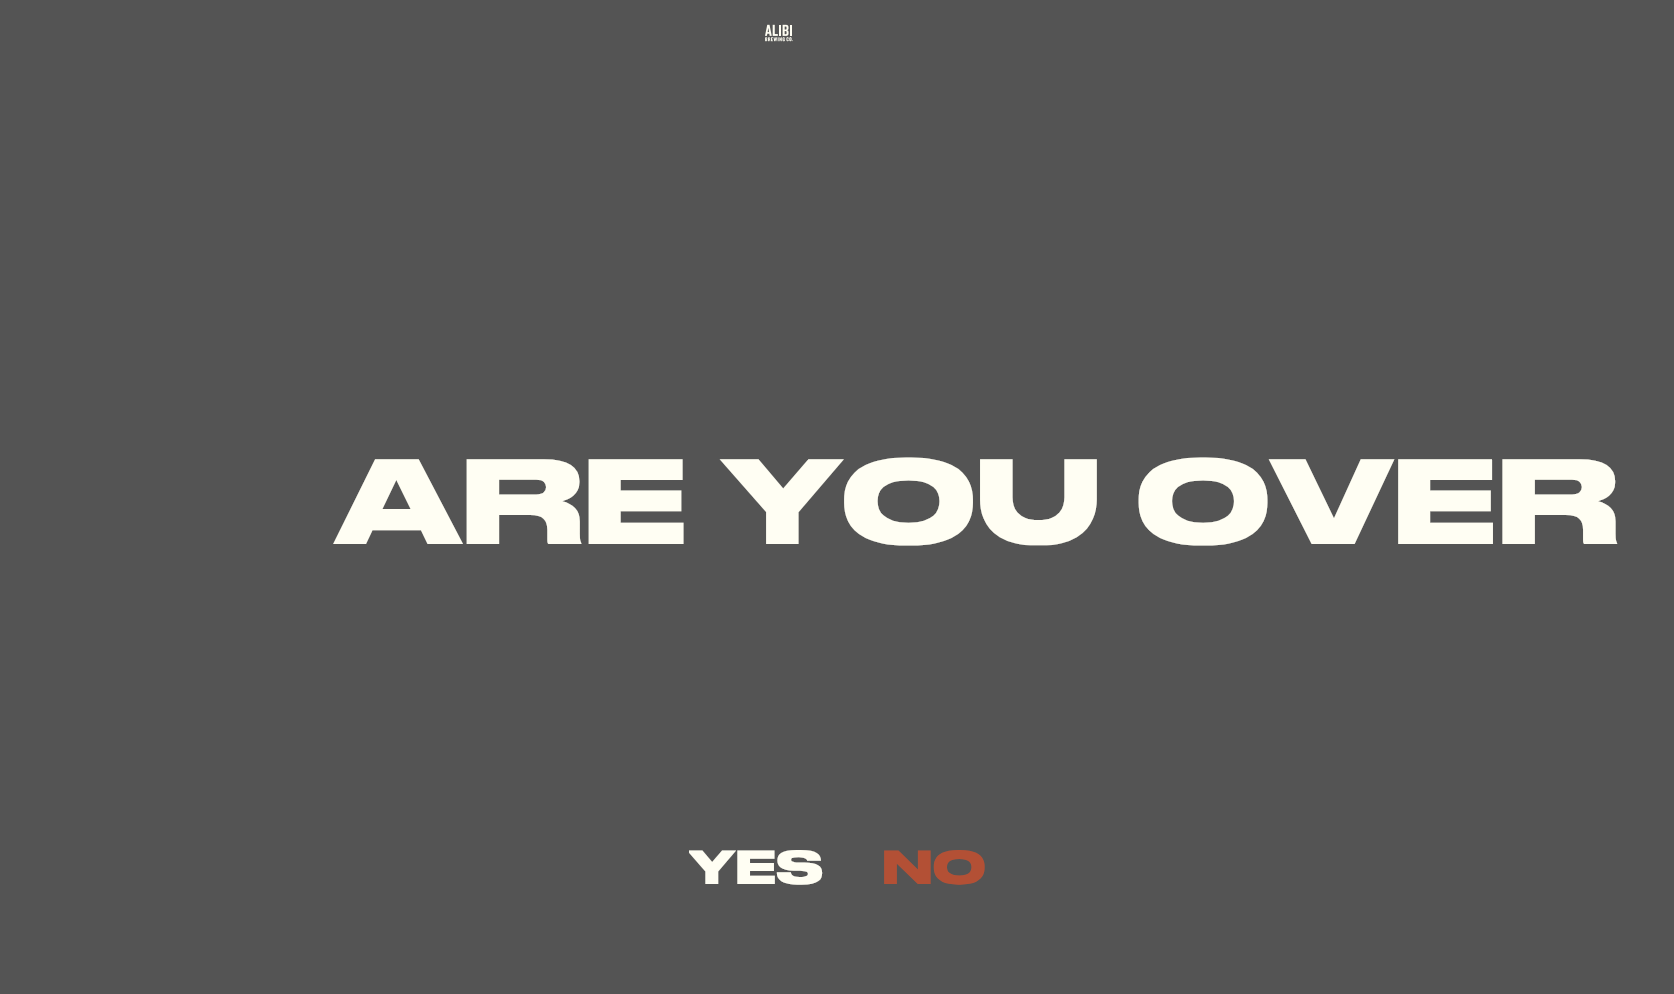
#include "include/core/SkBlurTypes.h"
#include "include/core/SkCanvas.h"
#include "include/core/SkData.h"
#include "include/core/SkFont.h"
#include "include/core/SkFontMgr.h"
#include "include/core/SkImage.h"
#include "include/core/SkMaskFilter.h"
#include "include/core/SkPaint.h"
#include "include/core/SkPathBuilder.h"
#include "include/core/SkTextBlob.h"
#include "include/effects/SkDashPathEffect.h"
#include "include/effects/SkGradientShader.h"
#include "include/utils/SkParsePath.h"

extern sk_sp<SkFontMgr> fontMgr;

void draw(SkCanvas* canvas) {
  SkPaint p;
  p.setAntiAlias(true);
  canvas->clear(SkColorSetRGB(84, 84, 84));
  canvas->drawImageRect(SkImages::DeferredFromEncodedData(SkData::MakeFromFileName("images/1.png")), SkRect::MakeLTRB(765, 24, 793, 42), SkSamplingOptions());
  SkFont font1(fontMgr->matchFamilyStyle("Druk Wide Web", SkFontStyle::Bold()), 114);
  font1.setSubpixel(true);
  p.setColor(SkColorSetRGB(255, 254, 243));
  canvas->drawString("ARE YOU OVER", 335, 544, font1, p);
  canvas->save();
  canvas->clipRect(SkRect::MakeLTRB(689, 839, 824, 894));
  SkFont font2(fontMgr->matchFamilyStyle("Druk Wide Web", SkFontStyle::Bold()), 45);
  font2.setSubpixel(true);
  canvas->drawString("YES", 688, 884, font2, p);
  canvas->restore();
  p.setColor(SkColorSetRGB(179, 80, 53));
  canvas->drawString("NO", 882, 884, font2, p);
}
